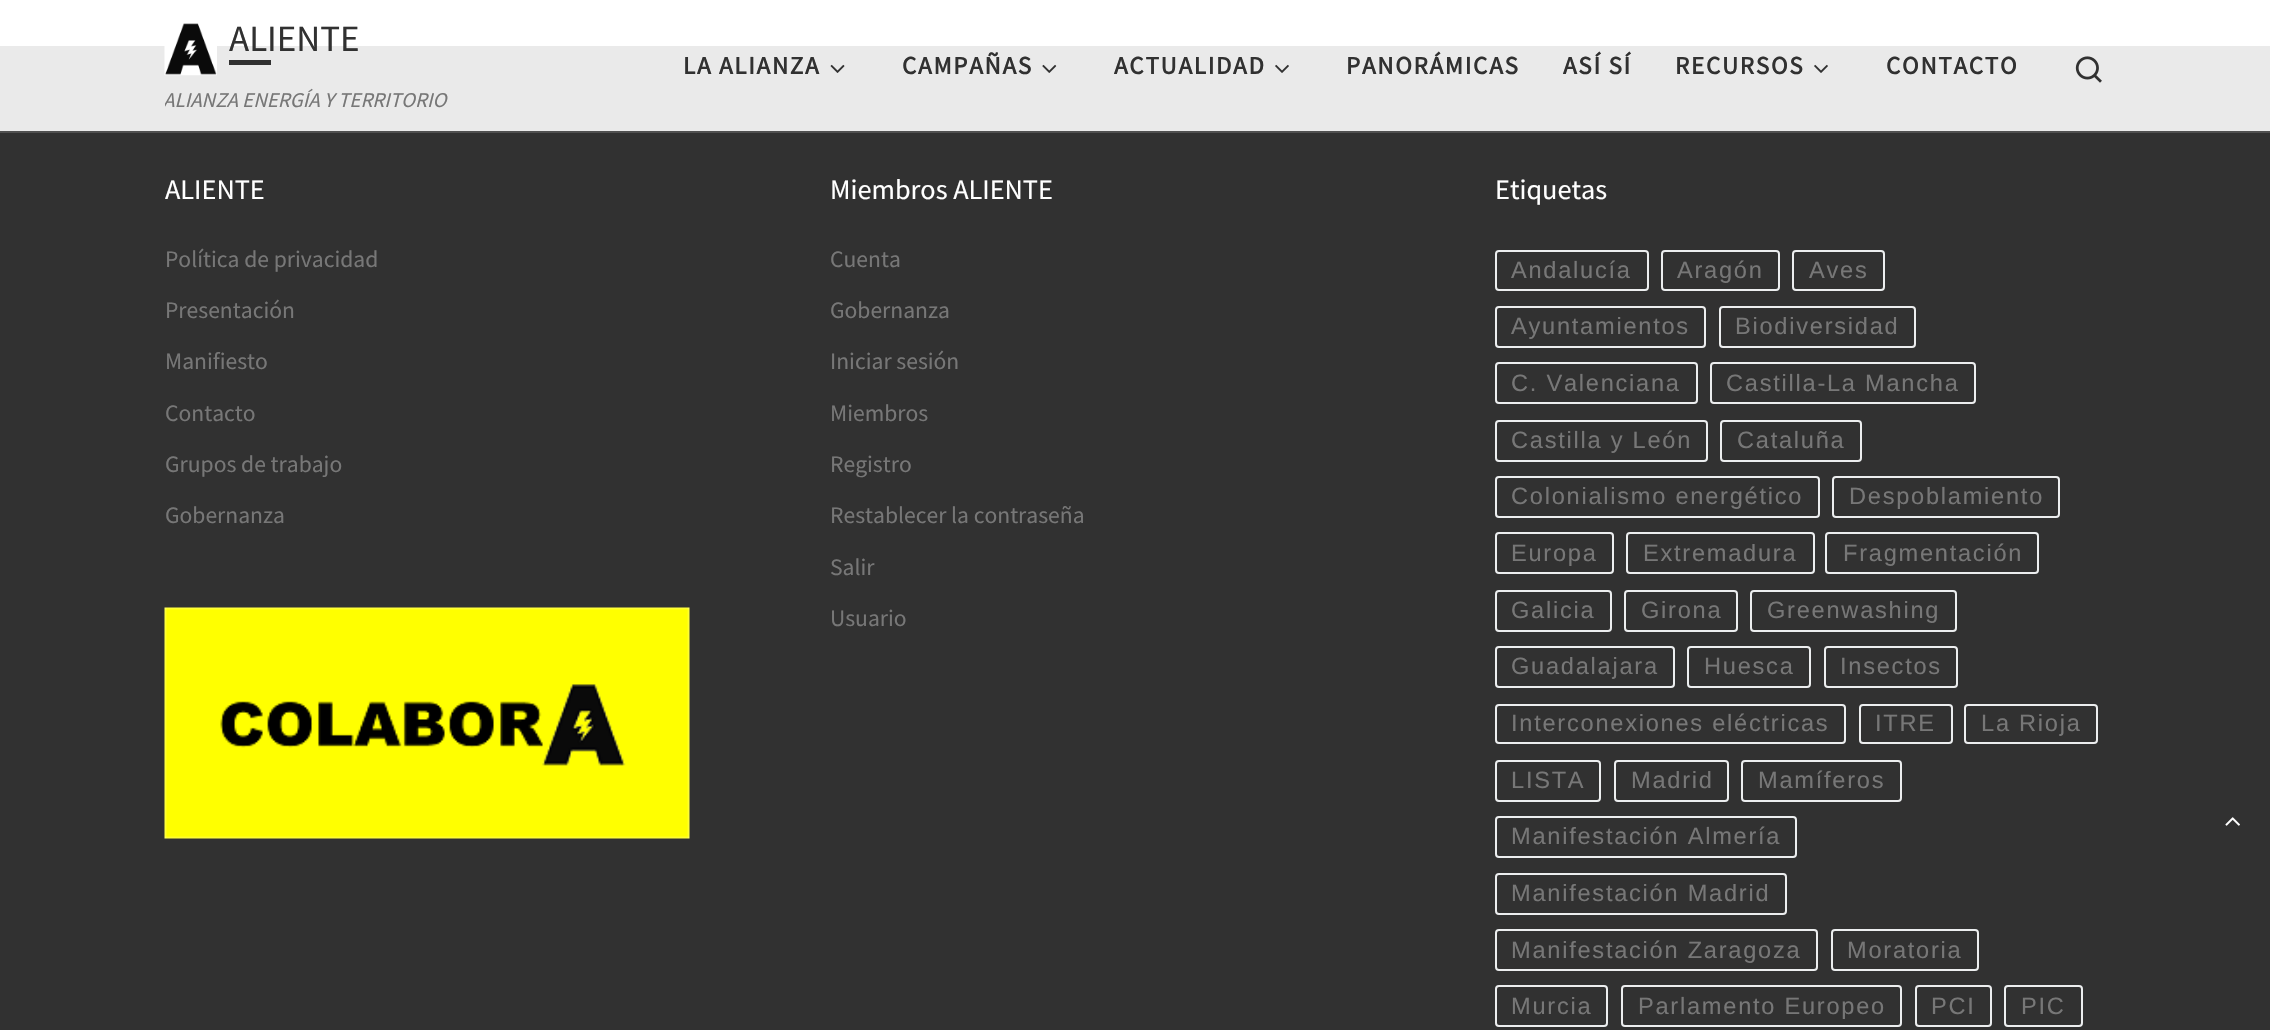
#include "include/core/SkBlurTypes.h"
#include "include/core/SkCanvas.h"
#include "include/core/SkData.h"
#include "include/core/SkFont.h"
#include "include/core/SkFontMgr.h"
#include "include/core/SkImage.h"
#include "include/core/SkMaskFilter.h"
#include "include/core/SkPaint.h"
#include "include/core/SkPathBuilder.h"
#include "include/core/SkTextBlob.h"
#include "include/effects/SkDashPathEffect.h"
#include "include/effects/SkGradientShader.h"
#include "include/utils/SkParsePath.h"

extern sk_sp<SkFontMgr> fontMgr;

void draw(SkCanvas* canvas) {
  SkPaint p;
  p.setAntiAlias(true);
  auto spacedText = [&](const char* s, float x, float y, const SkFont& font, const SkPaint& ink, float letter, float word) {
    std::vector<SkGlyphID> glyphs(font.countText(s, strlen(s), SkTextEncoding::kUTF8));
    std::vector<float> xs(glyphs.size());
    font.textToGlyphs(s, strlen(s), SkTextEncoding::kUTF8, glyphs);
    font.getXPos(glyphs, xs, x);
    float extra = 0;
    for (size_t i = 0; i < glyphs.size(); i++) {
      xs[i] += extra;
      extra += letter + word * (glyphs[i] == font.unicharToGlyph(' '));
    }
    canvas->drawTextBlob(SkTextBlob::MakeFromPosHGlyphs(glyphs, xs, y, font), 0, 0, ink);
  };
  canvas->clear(SK_ColorWHITE);
  p.setColor(SkColorSetRGB(80, 80, 80));
  canvas->drawPath(SkPathBuilder().moveTo(0, 131).lineTo(0, 133).lineTo(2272, 133).lineTo(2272, 2).lineTo(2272, 131).close().detach(), p);
  p.setColor(SkColorSetRGB(234, 234, 234));
  canvas->drawRect(SkRect::MakeLTRB(0, 46, 2270, 131), p);
  canvas->drawImageRect(SkImages::DeferredFromEncodedData(SkData::MakeFromFileName("images/1.png")), SkRect::MakeLTRB(164, 23, 217, 76), SkSamplingOptions());
  p.setColor(SkColorSetRGB(49, 49, 49));
  canvas->drawRect(SkRect::MakeLTRB(229, 60, 271, 65), p);
  canvas->drawImageRect(SkImages::DeferredFromEncodedData(SkData::MakeFromFileName("images/2.png")), SkRect::MakeLTRB(830, 64, 845, 73), SkSamplingOptions());
  canvas->drawImageRect(SkImages::DeferredFromEncodedData(SkData::MakeFromFileName("images/3.png")), SkRect::MakeLTRB(1042, 64, 1057, 73), SkSamplingOptions());
  canvas->drawImageRect(SkImages::DeferredFromEncodedData(SkData::MakeFromFileName("images/4.png")), SkRect::MakeLTRB(1275, 64, 1289, 73), SkSamplingOptions());
  canvas->drawImageRect(SkImages::DeferredFromEncodedData(SkData::MakeFromFileName("images/4.png")), SkRect::MakeLTRB(1814, 64, 1828, 73), SkSamplingOptions());
  canvas->drawImageRect(SkImages::DeferredFromEncodedData(SkData::MakeFromFileName("images/5.png")), SkRect::MakeLTRB(2075, 56, 2102, 83), SkSamplingOptions());
  canvas->drawRect(SkRect::MakeLTRB(0, 133, 2270, 1030), p);
  canvas->drawImageRect(SkImages::DeferredFromEncodedData(SkData::MakeFromFileName("images/6.png")), SkRect::MakeLTRB(164, 607, 690, 839), SkSamplingOptions());
  p.setStyle(SkPaint::kStroke_Style);
  p.setStrokeWidth(2);
  p.setColor(SkColorSetRGB(236, 238, 239));
  canvas->drawRoundRect(SkRect::MakeLTRB(1496, 251, 1648, 290), 3, 3, p);
  canvas->drawRoundRect(SkRect::MakeLTRB(1662, 251, 1779, 290), 3, 3, p);
  canvas->drawRoundRect(SkRect::MakeLTRB(1793, 251, 1884, 290), 3, 3, p);
  canvas->drawRoundRect(SkRect::MakeLTRB(1496, 307, 1705, 347), 3, 3, p);
  canvas->drawRoundRect(SkRect::MakeLTRB(1720, 307, 1915, 347), 3, 3, p);
  canvas->drawRoundRect(SkRect::MakeLTRB(1496, 363, 1697, 403), 3, 3, p);
  canvas->drawRoundRect(SkRect::MakeLTRB(1711, 363, 1975, 403), 3, 3, p);
  canvas->drawRoundRect(SkRect::MakeLTRB(1496, 421, 1707, 461), 3, 3, p);
  canvas->drawRoundRect(SkRect::MakeLTRB(1721, 421, 1861, 461), 3, 3, p);
  canvas->drawRoundRect(SkRect::MakeLTRB(1496, 477, 1819, 517), 3, 3, p);
  canvas->drawRoundRect(SkRect::MakeLTRB(1833, 477, 2059, 517), 3, 3, p);
  canvas->drawRoundRect(SkRect::MakeLTRB(1496, 533, 1613, 573), 3, 3, p);
  canvas->drawRoundRect(SkRect::MakeLTRB(1627, 533, 1814, 573), 3, 3, p);
  canvas->drawRoundRect(SkRect::MakeLTRB(1826, 533, 2038, 573), 3, 3, p);
  canvas->drawRoundRect(SkRect::MakeLTRB(1496, 591, 1611, 631), 3, 3, p);
  canvas->drawRoundRect(SkRect::MakeLTRB(1625, 591, 1737, 631), 3, 3, p);
  canvas->drawRoundRect(SkRect::MakeLTRB(1751, 591, 1956, 631), 3, 3, p);
  canvas->drawRoundRect(SkRect::MakeLTRB(1496, 647, 1674, 687), 3, 3, p);
  canvas->drawRoundRect(SkRect::MakeLTRB(1688, 647, 1810, 687), 3, 3, p);
  canvas->drawRoundRect(SkRect::MakeLTRB(1825, 647, 1957, 687), 3, 3, p);
  canvas->drawRoundRect(SkRect::MakeLTRB(1496, 705, 1845, 743), 3, 3, p);
  canvas->drawRoundRect(SkRect::MakeLTRB(1860, 705, 1952, 743), 3, 3, p);
  canvas->drawRoundRect(SkRect::MakeLTRB(1965, 705, 2097, 743), 3, 3, p);
  canvas->drawRoundRect(SkRect::MakeLTRB(1496, 761, 1600, 801), 3, 3, p);
  canvas->drawRoundRect(SkRect::MakeLTRB(1615, 761, 1728, 801), 3, 3, p);
  canvas->drawRoundRect(SkRect::MakeLTRB(1742, 761, 1901, 801), 3, 3, p);
  canvas->drawRoundRect(SkRect::MakeLTRB(1496, 817, 1796, 857), 3, 3, p);
  canvas->drawRoundRect(SkRect::MakeLTRB(1496, 874, 1786, 914), 3, 3, p);
  canvas->drawRoundRect(SkRect::MakeLTRB(1496, 930, 1817, 970), 3, 3, p);
  canvas->drawRoundRect(SkRect::MakeLTRB(1832, 930, 1978, 970), 3, 3, p);
  canvas->drawRoundRect(SkRect::MakeLTRB(1496, 986, 1607, 1026), 3, 3, p);
  canvas->drawRoundRect(SkRect::MakeLTRB(1622, 986, 1901, 1026), 3, 3, p);
  canvas->drawRoundRect(SkRect::MakeLTRB(1916, 986, 1991, 1026), 3, 3, p);
  canvas->drawRoundRect(SkRect::MakeLTRB(2005, 986, 2082, 1026), 3, 3, p);
  canvas->drawImageRect(SkImages::DeferredFromEncodedData(SkData::MakeFromFileName("images/7.png")), SkRect::MakeLTRB(2225, 817, 2240, 826), SkSamplingOptions());
  SkFont font1(fontMgr->matchFamilyStyle("Source Sans Pro", SkFontStyle::Normal()), 37);
  font1.setSubpixel(true);
  p.setStyle(SkPaint::kFill_Style);
  p.setColor(SkColorSetRGB(49, 49, 49));
  canvas->drawString("ALIENTE", 229, 51, font1, p);
  canvas->save();
  canvas->clipRect(SkRect::MakeLTRB(165, 0, 450, 131));
  SkFont font2(fontMgr->matchFamilyStyle("Source Sans Pro", SkFontStyle::Italic()), 21);
  font2.setSubpixel(true);
  p.setColor(SkColorSetRGB(119, 119, 119));
  canvas->drawString("ALIANZA ENERGÍA Y TERRITORIO", 163, 107, font2, p);
  canvas->restore();
  SkFont font3(fontMgr->matchFamilyStyle("Source Sans Pro", SkFontStyle::Bold()), 25);
  font3.setSubpixel(true);
  p.setColor(SkColorSetRGB(49, 49, 49));
  spacedText("LA ALIANZA", 683, 74, font3, p, 1.75f, 0);
  spacedText("CAMPAÑAS", 902, 74, font3, p, 1.75f, 0);
  spacedText("ACTUALIDAD", 1114, 74, font3, p, 1.75f, 0);
  spacedText("PANORÁMICAS", 1346, 74, font3, p, 1.75f, 0);
  spacedText("ASÍ SÍ", 1563, 74, font3, p, 1.75f, 0);
  spacedText("RECURSOS", 1675, 74, font3, p, 1.75f, 0);
  spacedText("CONTACTO", 1886, 74, font3, p, 1.75f, 0);
  SkFont font4(fontMgr->matchFamilyStyle("Source Sans Pro", SkFontStyle::Normal()), 28.25f);
  font4.setSubpixel(true);
  p.setColor(SK_ColorWHITE);
  canvas->drawString("ALIENTE", 165, 199, font4, p);
  SkFont font5(fontMgr->matchFamilyStyle("Source Sans Pro", SkFontStyle::Normal()), 23.6f);
  font5.setSubpixel(true);
  p.setColor(SkColorSetRGB(119, 119, 119));
  canvas->drawString("Política de privacidad", 165, 267, font5, p);
  canvas->drawString("Presentación", 165, 318, font5, p);
  canvas->drawString("Manifiesto", 165, 369, font5, p);
  canvas->drawString("Contacto", 165, 421, font5, p);
  canvas->drawString("Grupos de trabajo", 165, 472, font5, p);
  canvas->drawString("Gobernanza", 165, 523, font5, p);
  p.setColor(SK_ColorWHITE);
  canvas->drawString("Miembros ALIENTE", 830, 199, font4, p);
  p.setColor(SkColorSetRGB(119, 119, 119));
  canvas->drawString("Cuenta", 830, 267, font5, p);
  canvas->drawString("Gobernanza", 830, 318, font5, p);
  canvas->drawString("Iniciar sesión", 830, 369, font5, p);
  canvas->drawString("Miembros", 830, 421, font5, p);
  canvas->drawString("Registro", 830, 472, font5, p);
  canvas->drawString("Restablecer la contraseña", 830, 523, font5, p);
  canvas->drawString("Salir", 830, 575, font5, p);
  canvas->drawString("Usuario", 830, 626, font5, p);
  p.setColor(SK_ColorWHITE);
  canvas->drawString("Etiquetas", 1495, 199, font4, p);
  SkFont font6(fontMgr->matchFamilyStyle("Liberation Sans", SkFontStyle::Normal()), 23.6f);
  font6.setSubpixel(true);
  p.setColor(SkColorSetRGB(119, 119, 119));
  spacedText("Andalucía", 1511, 278, font6, p, 1.75f, 0);
  spacedText("Aragón", 1677, 278, font6, p, 1.75f, 0);
  spacedText("Aves", 1809, 278, font6, p, 1.75f, 0);
  spacedText("Ayuntamientos", 1511, 334, font6, p, 1.75f, 0);
  spacedText("Biodiversidad", 1735, 334, font6, p, 1.75f, 0);
  spacedText("C. Valenciana", 1511, 391, font6, p, 1.75f, 0);
  spacedText("Castilla-La Mancha", 1726, 391, font6, p, 1.75f, 0);
  spacedText("Castilla y León", 1511, 448, font6, p, 1.75f, 0);
  spacedText("Cataluña", 1737, 448, font6, p, 1.75f, 0);
  spacedText("Colonialismo energético", 1511, 504, font6, p, 1.75f, 0);
  spacedText("Despoblamiento", 1849, 504, font6, p, 1.75f, 0);
  spacedText("Europa", 1511, 561, font6, p, 1.75f, 0);
  spacedText("Extremadura", 1643, 561, font6, p, 1.75f, 0);
  spacedText("Fragmentación", 1843, 561, font6, p, 1.75f, 0);
  spacedText("Galicia", 1511, 618, font6, p, 1.75f, 0);
  spacedText("Girona", 1641, 618, font6, p, 1.75f, 0);
  spacedText("Greenwashing", 1767, 618, font6, p, 1.75f, 0);
  spacedText("Guadalajara", 1511, 674, font6, p, 1.75f, 0);
  spacedText("Huesca", 1704, 674, font6, p, 1.75f, 0);
  spacedText("Insectos", 1840, 674, font6, p, 1.75f, 0);
  spacedText("Interconexiones eléctricas", 1511, 731, font6, p, 1.75f, 0);
  spacedText("ITRE", 1875, 731, font6, p, 1.75f, 0);
  spacedText("La Rioja", 1981, 731, font6, p, 1.75f, 0);
  spacedText("LISTA", 1511, 788, font6, p, 1.75f, 0);
  spacedText("Madrid", 1631, 788, font6, p, 1.75f, 0);
  spacedText("Mamíferos", 1758, 788, font6, p, 1.75f, 0);
  spacedText("Manifestación Almería", 1511, 844, font6, p, 1.75f, 0);
  spacedText("Manifestación Madrid", 1511, 901, font6, p, 1.75f, 0);
  spacedText("Manifestación Zaragoza", 1511, 958, font6, p, 1.75f, 0);
  spacedText("Moratoria", 1847, 958, font6, p, 1.75f, 0);
  spacedText("Murcia", 1511, 1014, font6, p, 1.75f, 0);
  spacedText("Parlamento Europeo", 1638, 1014, font6, p, 1.75f, 0);
  spacedText("PCI", 1931, 1014, font6, p, 1.75f, 0);
  spacedText("PIC", 2021, 1014, font6, p, 1.75f, 0);
}
